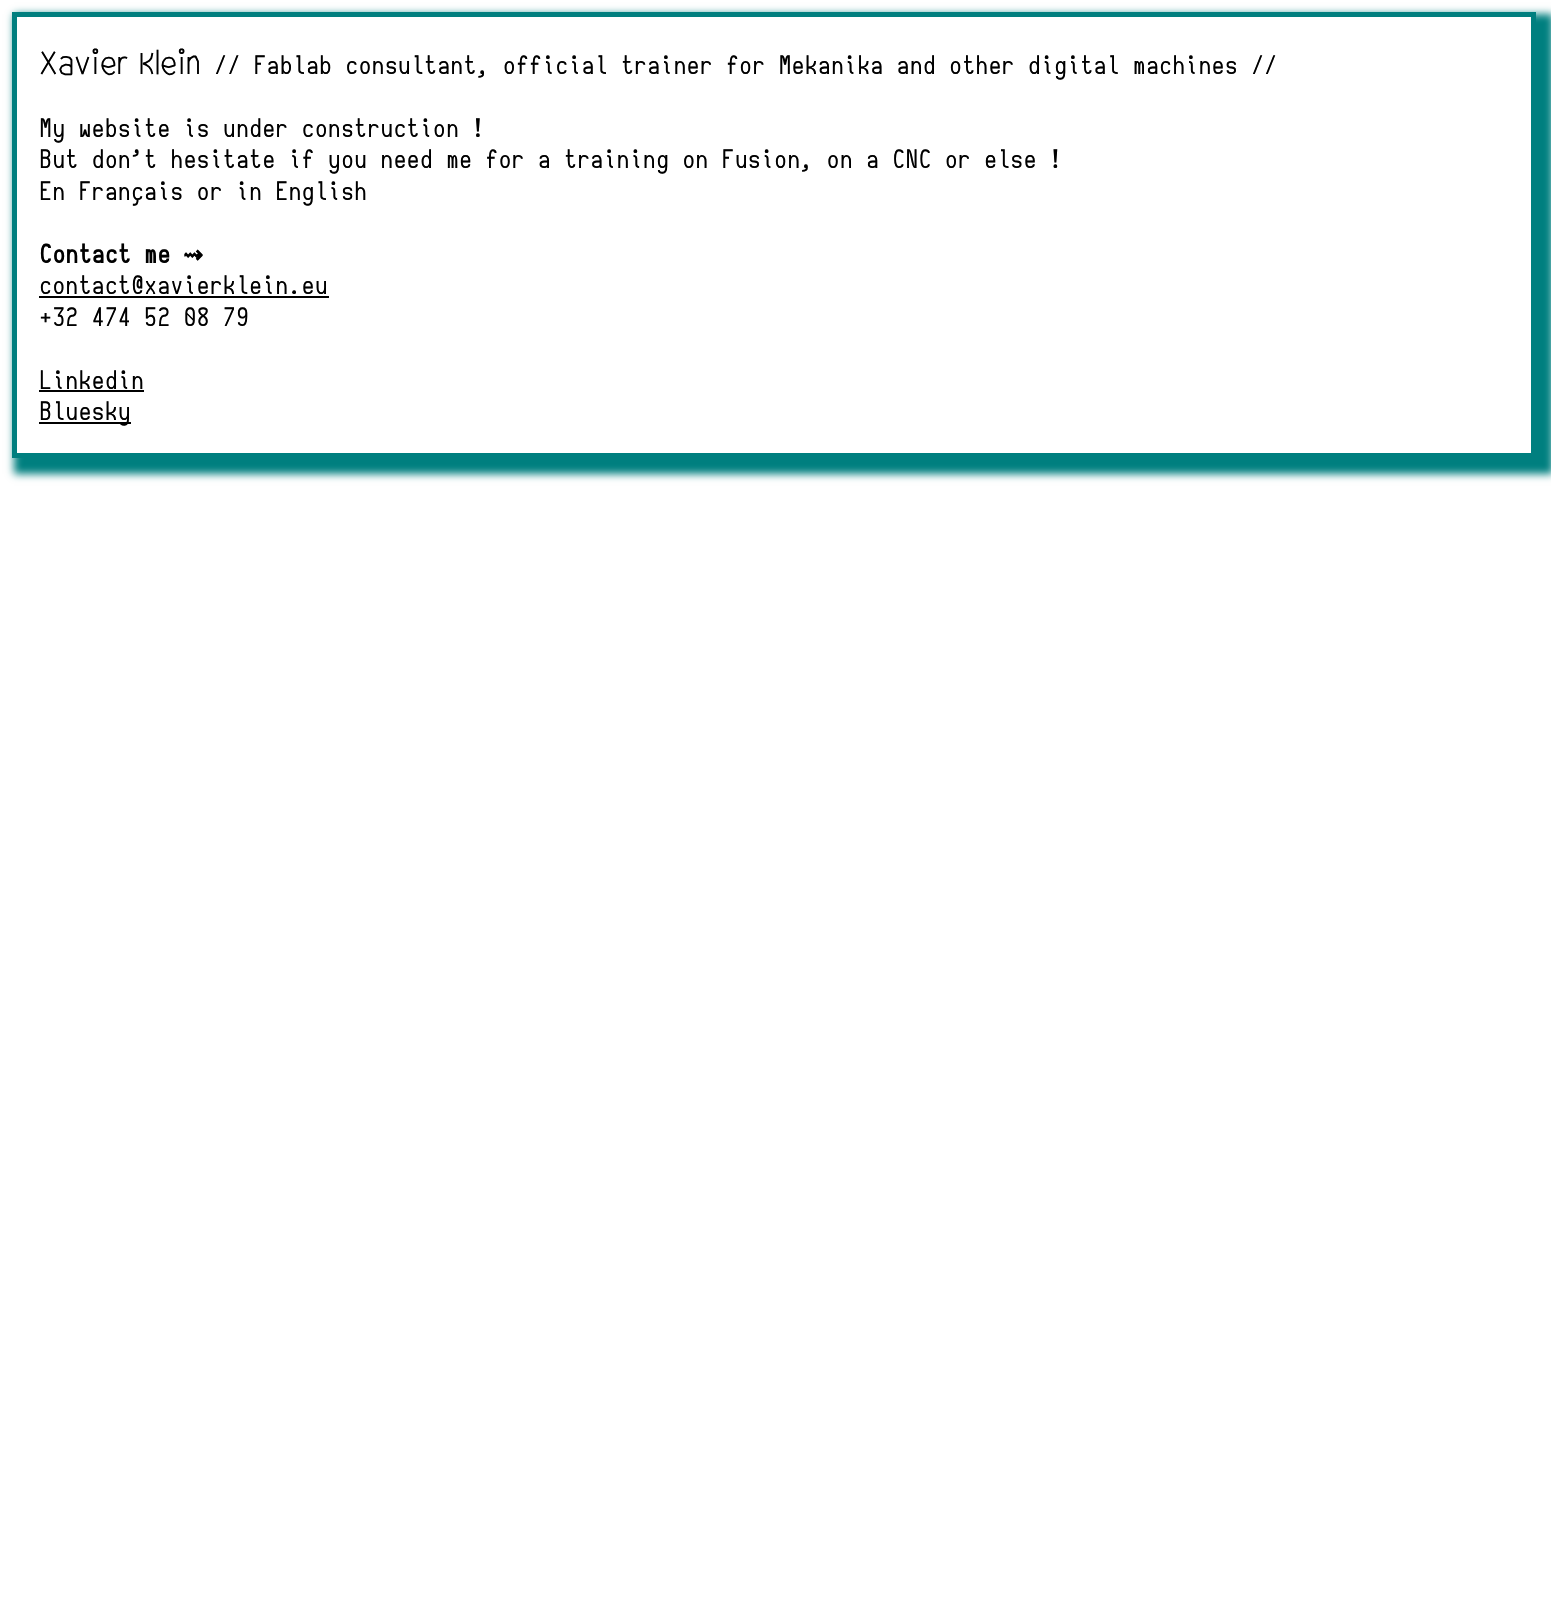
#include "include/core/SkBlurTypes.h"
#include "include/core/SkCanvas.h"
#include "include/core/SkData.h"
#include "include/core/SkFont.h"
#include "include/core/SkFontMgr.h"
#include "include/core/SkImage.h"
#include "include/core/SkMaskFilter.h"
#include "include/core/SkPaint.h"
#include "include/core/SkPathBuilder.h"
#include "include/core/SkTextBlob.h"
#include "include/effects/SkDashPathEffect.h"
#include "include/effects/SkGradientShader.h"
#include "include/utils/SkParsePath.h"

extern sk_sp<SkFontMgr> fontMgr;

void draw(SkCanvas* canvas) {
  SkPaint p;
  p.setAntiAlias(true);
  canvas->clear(SK_ColorWHITE);
  canvas->save();
  canvas->clipPath(SkPathBuilder(SkPathFillType::kEvenOdd).moveTo(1, 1).lineTo(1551, 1).lineTo(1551, 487).lineTo(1, 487).close().moveTo(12, 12).lineTo(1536, 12).lineTo(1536, 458).lineTo(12, 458).close().detach(), true);
  p.setColor(SkColorSetRGB(0, 127, 127));
  p.setMaskFilter(SkMaskFilter::MakeBlur(kNormal_SkBlurStyle, 4));
  canvas->drawRect(SkRect::MakeLTRB(14, 14, 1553, 474), p);
  p.setMaskFilter(nullptr);
  canvas->restore();
  p.setStyle(SkPaint::kStroke_Style);
  p.setStrokeWidth(5);
  canvas->drawRect(SkRect::MakeLTRB(14.5f, 14.5f, 1533.5f, 455.5f), p);
  p.setStyle(SkPaint::kFill_Style);
  p.setColor(SK_ColorBLACK);
  canvas->drawRect(SkRect::MakeLTRB(39, 296, 329, 298), p);
  canvas->drawRect(SkRect::MakeLTRB(39, 390, 144, 392), p);
  canvas->drawRect(SkRect::MakeLTRB(39, 422, 131, 424), p);
  SkFont font1(fontMgr->matchFamilyStyle("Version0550", SkFontStyle(500, SkFontStyle::kNormal_Width, SkFontStyle::kUpright_Slant)), 36);
  font1.setSubpixel(true);
  canvas->drawString("Xavier", 39, 74, font1, p);
  canvas->drawString("Klein", 139, 74, font1, p);
  SkFont font2(fontMgr->matchFamilyStyle("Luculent", SkFontStyle::Normal()), 24);
  font2.setSubpixel(true);
  canvas->drawString("// Fablab consultant, official trainer for Mekanika and other digital machines //", 214, 74, font2, p);
  canvas->drawString("My website is under construction !", 39, 137, font2, p);
  canvas->drawString("But don't hesitate if you need me for a training on Fusion, on a CNC or else !", 39, 168, font2, p);
  canvas->drawString("En Français or in English", 39, 200, font2, p);
  SkFont font3(fontMgr->matchFamilyStyle("Luculent", SkFontStyle::Bold()), 24);
  font3.setSubpixel(true);
  canvas->drawString("Contact me", 39, 263, font3, p);
  SkFont font4(fontMgr->matchFamilyStyle("DejaVu Sans", SkFontStyle::Bold()), 24);
  font4.setSubpixel(true);
  canvas->drawString("⇝", 183, 263, font4, p);
  canvas->drawString("contact@xavierklein.eu", 39, 294, font2, p);
  canvas->drawString("+32 474 52 08 79", 39, 326, font2, p);
  canvas->drawString("Linkedin", 39, 389, font2, p);
  canvas->drawString("Bluesky", 39, 420, font2, p);
}
